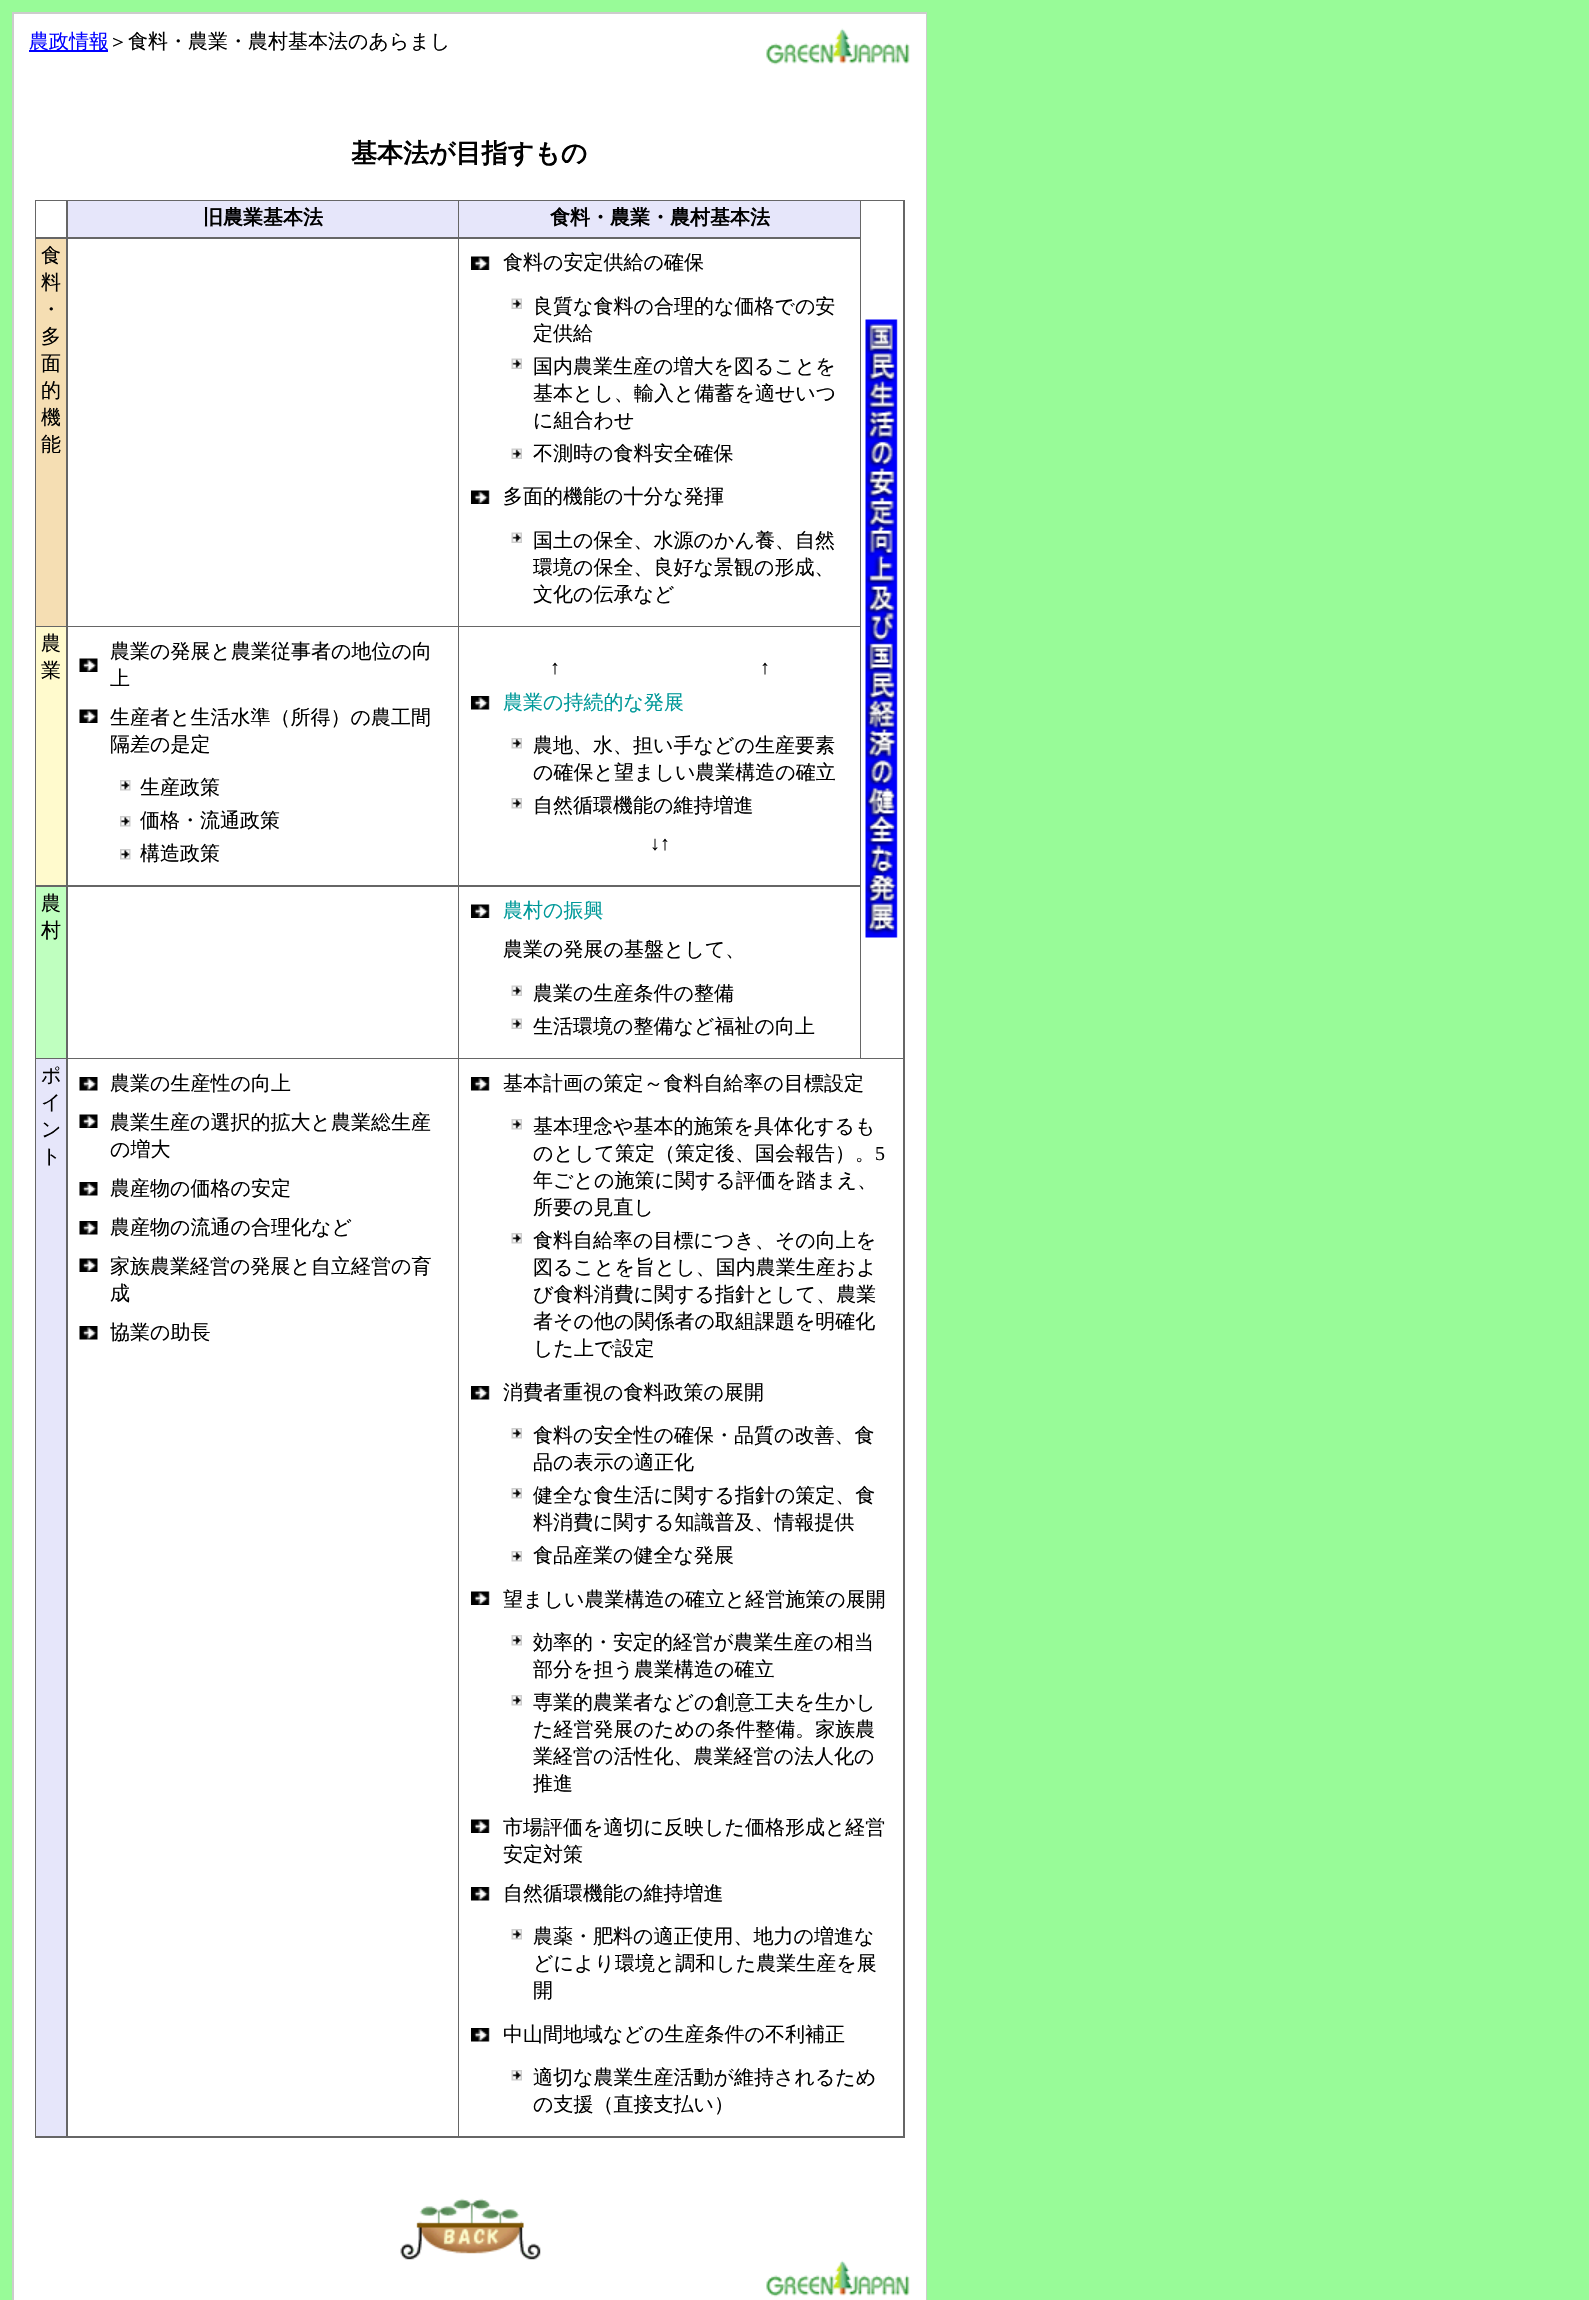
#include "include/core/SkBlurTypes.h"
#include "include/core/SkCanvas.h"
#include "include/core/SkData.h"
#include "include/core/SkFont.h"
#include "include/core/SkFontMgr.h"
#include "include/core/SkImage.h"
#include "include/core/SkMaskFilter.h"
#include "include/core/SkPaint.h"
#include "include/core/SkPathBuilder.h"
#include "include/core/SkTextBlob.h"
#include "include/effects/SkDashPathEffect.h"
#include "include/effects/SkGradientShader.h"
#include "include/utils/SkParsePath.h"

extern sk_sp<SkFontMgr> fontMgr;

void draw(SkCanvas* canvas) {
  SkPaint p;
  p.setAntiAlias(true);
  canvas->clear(SkColorSetRGB(152, 251, 152));
  p.setColor(SkColorSetRGB(204, 204, 204));
  canvas->drawRect(SkRect::MakeLTRB(12, 12, 927, 2300), p);
  p.setColor(SK_ColorWHITE);
  canvas->drawRect(SkRect::MakeLTRB(14, 14, 926, 2300), p);
  p.setColor(SkColorSetRGB(0, 0, 255));
  canvas->drawRect(SkRect::MakeLTRB(29, 50, 108, 52), p);
  canvas->drawImageRect(SkImages::DeferredFromEncodedData(SkData::MakeFromFileName("images/1.png")), SkRect::MakeLTRB(766, 28, 910, 65), SkSamplingOptions());
  p.setColor(SkColorSetRGB(102, 102, 102));
  canvas->drawRect(SkRect::MakeLTRB(35, 200, 905, 2138), p);
  p.setColor(SK_ColorWHITE);
  canvas->drawRect(SkRect::MakeLTRB(36, 201, 66, 237), p);
  p.setColor(SkColorSetRGB(230, 230, 250));
  canvas->drawRect(SkRect::MakeLTRB(68, 201, 458, 237), p);
  canvas->drawRect(SkRect::MakeLTRB(459, 201, 860, 237), p);
  p.setColor(SK_ColorWHITE);
  canvas->drawRect(SkRect::MakeLTRB(861, 201, 903, 1058), p);
  canvas->drawImageRect(SkImages::DeferredFromEncodedData(SkData::MakeFromFileName("images/2.png")), SkRect::MakeLTRB(865, 319, 898, 938), SkSamplingOptions());
  p.setColor(SkColorSetRGB(245, 222, 179));
  canvas->drawRect(SkRect::MakeLTRB(36, 239, 66, 626), p);
  p.setColor(SK_ColorWHITE);
  canvas->drawRect(SkRect::MakeLTRB(68, 239, 458, 626), p);
  canvas->drawRect(SkRect::MakeLTRB(459, 239, 860, 626), p);
  canvas->drawImageRect(SkImages::DeferredFromEncodedData(SkData::MakeFromFileName("images/3.png")), SkRect::MakeLTRB(471, 256, 490, 270), SkSamplingOptions());
  canvas->drawImageRect(SkImages::DeferredFromEncodedData(SkData::MakeFromFileName("images/4.png")), SkRect::MakeLTRB(511, 298, 522, 309), SkSamplingOptions());
  canvas->drawImageRect(SkImages::DeferredFromEncodedData(SkData::MakeFromFileName("images/4.png")), SkRect::MakeLTRB(511, 358, 522, 369), SkSamplingOptions());
  canvas->drawImageRect(SkImages::DeferredFromEncodedData(SkData::MakeFromFileName("images/4.png")), SkRect::MakeLTRB(511, 448, 522, 459), SkSamplingOptions());
  canvas->drawImageRect(SkImages::DeferredFromEncodedData(SkData::MakeFromFileName("images/3.png")), SkRect::MakeLTRB(471, 490, 490, 504), SkSamplingOptions());
  canvas->drawImageRect(SkImages::DeferredFromEncodedData(SkData::MakeFromFileName("images/4.png")), SkRect::MakeLTRB(511, 532, 522, 543), SkSamplingOptions());
  p.setColor(SkColorSetRGB(255, 250, 205));
  canvas->drawRect(SkRect::MakeLTRB(36, 627, 66, 885), p);
  p.setColor(SK_ColorWHITE);
  canvas->drawRect(SkRect::MakeLTRB(68, 627, 458, 885), p);
  canvas->drawImageRect(SkImages::DeferredFromEncodedData(SkData::MakeFromFileName("images/5.png")), SkRect::MakeLTRB(79, 658, 98, 672), SkSamplingOptions());
  canvas->drawImageRect(SkImages::DeferredFromEncodedData(SkData::MakeFromFileName("images/5.png")), SkRect::MakeLTRB(79, 709, 98, 723), SkSamplingOptions());
  canvas->drawImageRect(SkImages::DeferredFromEncodedData(SkData::MakeFromFileName("images/6.png")), SkRect::MakeLTRB(120, 780, 131, 791), SkSamplingOptions());
  canvas->drawImageRect(SkImages::DeferredFromEncodedData(SkData::MakeFromFileName("images/6.png")), SkRect::MakeLTRB(120, 816, 131, 827), SkSamplingOptions());
  canvas->drawImageRect(SkImages::DeferredFromEncodedData(SkData::MakeFromFileName("images/6.png")), SkRect::MakeLTRB(120, 849, 131, 860), SkSamplingOptions());
  canvas->drawRect(SkRect::MakeLTRB(459, 627, 860, 885), p);
  canvas->drawImageRect(SkImages::DeferredFromEncodedData(SkData::MakeFromFileName("images/7.png")), SkRect::MakeLTRB(471, 696, 490, 710), SkSamplingOptions());
  canvas->drawImageRect(SkImages::DeferredFromEncodedData(SkData::MakeFromFileName("images/8.png")), SkRect::MakeLTRB(511, 738, 522, 749), SkSamplingOptions());
  canvas->drawImageRect(SkImages::DeferredFromEncodedData(SkData::MakeFromFileName("images/8.png")), SkRect::MakeLTRB(511, 798, 522, 809), SkSamplingOptions());
  p.setColor(SkColorSetRGB(191, 255, 191));
  canvas->drawRect(SkRect::MakeLTRB(36, 887, 66, 1058), p);
  p.setColor(SK_ColorWHITE);
  canvas->drawRect(SkRect::MakeLTRB(68, 887, 458, 1058), p);
  canvas->drawRect(SkRect::MakeLTRB(459, 887, 860, 1058), p);
  canvas->drawImageRect(SkImages::DeferredFromEncodedData(SkData::MakeFromFileName("images/3.png")), SkRect::MakeLTRB(471, 904, 490, 918), SkSamplingOptions());
  canvas->drawImageRect(SkImages::DeferredFromEncodedData(SkData::MakeFromFileName("images/4.png")), SkRect::MakeLTRB(511, 985, 522, 996), SkSamplingOptions());
  canvas->drawImageRect(SkImages::DeferredFromEncodedData(SkData::MakeFromFileName("images/4.png")), SkRect::MakeLTRB(511, 1018, 522, 1029), SkSamplingOptions());
  p.setColor(SkColorSetRGB(230, 230, 250));
  canvas->drawRect(SkRect::MakeLTRB(36, 1059, 66, 2136), p);
  p.setColor(SK_ColorWHITE);
  canvas->drawRect(SkRect::MakeLTRB(68, 1059, 458, 2136), p);
  canvas->drawImageRect(SkImages::DeferredFromEncodedData(SkData::MakeFromFileName("images/9.png")), SkRect::MakeLTRB(79, 1077, 98, 1091), SkSamplingOptions());
  canvas->drawImageRect(SkImages::DeferredFromEncodedData(SkData::MakeFromFileName("images/5.png")), SkRect::MakeLTRB(79, 1114, 98, 1128), SkSamplingOptions());
  canvas->drawImageRect(SkImages::DeferredFromEncodedData(SkData::MakeFromFileName("images/9.png")), SkRect::MakeLTRB(79, 1182, 98, 1196), SkSamplingOptions());
  canvas->drawImageRect(SkImages::DeferredFromEncodedData(SkData::MakeFromFileName("images/9.png")), SkRect::MakeLTRB(79, 1221, 98, 1235), SkSamplingOptions());
  canvas->drawImageRect(SkImages::DeferredFromEncodedData(SkData::MakeFromFileName("images/5.png")), SkRect::MakeLTRB(79, 1258, 98, 1272), SkSamplingOptions());
  canvas->drawImageRect(SkImages::DeferredFromEncodedData(SkData::MakeFromFileName("images/9.png")), SkRect::MakeLTRB(79, 1326, 98, 1340), SkSamplingOptions());
  canvas->drawRect(SkRect::MakeLTRB(459, 1059, 903, 2136), p);
  canvas->drawImageRect(SkImages::DeferredFromEncodedData(SkData::MakeFromFileName("images/7.png")), SkRect::MakeLTRB(471, 1077, 490, 1091), SkSamplingOptions());
  canvas->drawImageRect(SkImages::DeferredFromEncodedData(SkData::MakeFromFileName("images/8.png")), SkRect::MakeLTRB(511, 1119, 522, 1130), SkSamplingOptions());
  canvas->drawImageRect(SkImages::DeferredFromEncodedData(SkData::MakeFromFileName("images/8.png")), SkRect::MakeLTRB(511, 1233, 522, 1244), SkSamplingOptions());
  canvas->drawImageRect(SkImages::DeferredFromEncodedData(SkData::MakeFromFileName("images/7.png")), SkRect::MakeLTRB(471, 1386, 490, 1400), SkSamplingOptions());
  canvas->drawImageRect(SkImages::DeferredFromEncodedData(SkData::MakeFromFileName("images/8.png")), SkRect::MakeLTRB(511, 1428, 522, 1439), SkSamplingOptions());
  canvas->drawImageRect(SkImages::DeferredFromEncodedData(SkData::MakeFromFileName("images/8.png")), SkRect::MakeLTRB(511, 1488, 522, 1499), SkSamplingOptions());
  canvas->drawImageRect(SkImages::DeferredFromEncodedData(SkData::MakeFromFileName("images/8.png")), SkRect::MakeLTRB(511, 1551, 522, 1562), SkSamplingOptions());
  canvas->drawImageRect(SkImages::DeferredFromEncodedData(SkData::MakeFromFileName("images/3.png")), SkRect::MakeLTRB(471, 1591, 490, 1605), SkSamplingOptions());
  canvas->drawImageRect(SkImages::DeferredFromEncodedData(SkData::MakeFromFileName("images/8.png")), SkRect::MakeLTRB(511, 1635, 522, 1646), SkSamplingOptions());
  canvas->drawImageRect(SkImages::DeferredFromEncodedData(SkData::MakeFromFileName("images/8.png")), SkRect::MakeLTRB(511, 1695, 522, 1706), SkSamplingOptions());
  canvas->drawImageRect(SkImages::DeferredFromEncodedData(SkData::MakeFromFileName("images/3.png")), SkRect::MakeLTRB(471, 1819, 490, 1833), SkSamplingOptions());
  canvas->drawImageRect(SkImages::DeferredFromEncodedData(SkData::MakeFromFileName("images/7.png")), SkRect::MakeLTRB(471, 1887, 490, 1901), SkSamplingOptions());
  canvas->drawImageRect(SkImages::DeferredFromEncodedData(SkData::MakeFromFileName("images/8.png")), SkRect::MakeLTRB(511, 1929, 522, 1940), SkSamplingOptions());
  canvas->drawImageRect(SkImages::DeferredFromEncodedData(SkData::MakeFromFileName("images/7.png")), SkRect::MakeLTRB(471, 2028, 490, 2042), SkSamplingOptions());
  canvas->drawImageRect(SkImages::DeferredFromEncodedData(SkData::MakeFromFileName("images/8.png")), SkRect::MakeLTRB(511, 2070, 522, 2081), SkSamplingOptions());
  canvas->drawImageRect(SkImages::DeferredFromEncodedData(SkData::MakeFromFileName("images/10.png")), SkRect::MakeLTRB(400, 2198, 541, 2260), SkSamplingOptions());
  canvas->drawImageRect(SkImages::DeferredFromEncodedData(SkData::MakeFromFileName("images/1.png")), SkRect::MakeLTRB(766, 2260, 910, 2297), SkSamplingOptions());
  SkFont font1(fontMgr->matchFamilyStyle("WenQuanYi Zen Hei", SkFontStyle(500, SkFontStyle::kNormal_Width, SkFontStyle::kUpright_Slant)), 20);
  font1.setSubpixel(true);
  p.setColor(SkColorSetRGB(0, 0, 255));
  canvas->drawString("農政情報", 29, 48, font1, p);
  p.setColor(SK_ColorBLACK);
  canvas->drawString("＞食料・農業・農村基本法のあらまし", 108, 48, font1, p);
  SkFont font2(fontMgr->matchFamilyStyle("WenQuanYi Zen Hei", SkFontStyle::Bold()), 26);
  font2.setSubpixel(true);
  canvas->drawString("基本法が目指すもの", 351, 162, font2, p);
  SkFont font3(fontMgr->matchFamilyStyle("WenQuanYi Zen Hei", SkFontStyle::Bold()), 20);
  font3.setSubpixel(true);
  canvas->drawString("旧農業基本法", 203, 224, font3, p);
  canvas->drawString("食料・農業・農村基本法", 550, 224, font3, p);
  canvas->drawString("食", 41, 262, font1, p);
  canvas->drawString("料", 41, 289, font1, p);
  canvas->drawString("・", 41, 316, font1, p);
  canvas->drawString("多", 41, 343, font1, p);
  canvas->drawString("面", 41, 370, font1, p);
  canvas->drawString("的", 41, 397, font1, p);
  canvas->drawString("機", 41, 424, font1, p);
  canvas->drawString("能", 41, 451, font1, p);
  canvas->drawString("食料の安定供給の確保", 503, 269, font1, p);
  canvas->drawString("良質な食料の合理的な価格での安", 533, 313, font1, p);
  canvas->drawString("定供給", 533, 340, font1, p);
  canvas->drawString("国内農業生産の増大を図ることを", 533, 373, font1, p);
  canvas->drawString("基本とし、輸入と備蓄を適せいつ", 533, 400, font1, p);
  canvas->drawString("に組合わせ", 533, 427, font1, p);
  canvas->drawString("不測時の食料安全確保", 533, 460, font1, p);
  canvas->drawString("多面的機能の十分な発揮", 503, 503, font1, p);
  canvas->drawString("国土の保全、水源のかん養、自然", 533, 547, font1, p);
  canvas->drawString("環境の保全、良好な景観の形成、", 533, 574, font1, p);
  canvas->drawString("文化の伝承など", 533, 601, font1, p);
  canvas->drawString("農", 41, 650, font1, p);
  canvas->drawString("業", 41, 677, font1, p);
  canvas->drawString("農業の発展と農業従事者の地位の向", 110, 658, font1, p);
  canvas->drawString("上", 110, 685, font1, p);
  canvas->drawString("生産者と生活水準（所得）の農工間", 110, 724, font1, p);
  canvas->drawString("隔差の是定", 110, 751, font1, p);
  canvas->drawString("生産政策", 140, 794, font1, p);
  canvas->drawString("価格・流通政策", 140, 827, font1, p);
  canvas->drawString("構造政策", 140, 860, font1, p);
  SkFont font4(fontMgr->matchFamilyStyle("Liberation Serif", SkFontStyle::Normal()), 20);
  font4.setSubpixel(true);
  canvas->drawString("↑", 550, 674, font4, p);
  canvas->drawString("↑", 760, 674, font4, p);
  p.setColor(SkColorSetRGB(0, 153, 153));
  canvas->drawString("農業の持続的な発展", 503, 709, font1, p);
  p.setColor(SK_ColorBLACK);
  canvas->drawString("農地、水、担い手などの生産要素", 533, 752, font1, p);
  canvas->drawString("の確保と望ましい農業構造の確立", 533, 779, font1, p);
  canvas->drawString("自然循環機能の維持増進", 533, 812, font1, p);
  canvas->drawString("↓↑", 650, 850, font4, p);
  canvas->drawString("農", 41, 910, font1, p);
  canvas->drawString("村", 41, 937, font1, p);
  p.setColor(SkColorSetRGB(0, 153, 153));
  canvas->drawString("農村の振興", 503, 917, font1, p);
  p.setColor(SK_ColorBLACK);
  canvas->drawString("農業の発展の基盤として、", 503, 956, font1, p);
  canvas->drawString("農業の生産条件の整備", 533, 1000, font1, p);
  canvas->drawString("生活環境の整備など福祉の向上", 533, 1033, font1, p);
  canvas->drawString("ポ", 41, 1082, font1, p);
  canvas->drawString("イ", 41, 1109, font1, p);
  canvas->drawString("ン", 41, 1136, font1, p);
  canvas->drawString("ト", 41, 1163, font1, p);
  canvas->drawString("農業の生産性の向上", 110, 1090, font1, p);
  canvas->drawString("農業生産の選択的拡大と農業総生産", 110, 1129, font1, p);
  canvas->drawString("の増大", 110, 1156, font1, p);
  canvas->drawString("農産物の価格の安定", 110, 1195, font1, p);
  canvas->drawString("農産物の流通の合理化など", 110, 1234, font1, p);
  canvas->drawString("家族農業経営の発展と自立経営の育", 110, 1273, font1, p);
  canvas->drawString("成", 110, 1300, font1, p);
  canvas->drawString("協業の助長", 110, 1339, font1, p);
  canvas->drawString("基本計画の策定～食料自給率の目標設定", 503, 1090, font1, p);
  canvas->drawString("基本理念や基本的施策を具体化するも", 533, 1133, font1, p);
  canvas->drawString("のとして策定（策定後、国会報告）。", 533, 1160, font1, p);
  canvas->drawString("5", 875, 1160, font4, p);
  canvas->drawString("年ごとの施策に関する評価を踏まえ、", 533, 1187, font1, p);
  canvas->drawString("所要の見直し", 533, 1214, font1, p);
  canvas->drawString("食料自給率の目標につき、その向上を", 533, 1247, font1, p);
  canvas->drawString("図ることを旨とし、国内農業生産およ", 533, 1274, font1, p);
  canvas->drawString("び食料消費に関する指針として、農業", 533, 1301, font1, p);
  canvas->drawString("者その他の関係者の取組課題を明確化", 533, 1328, font1, p);
  canvas->drawString("した上で設定", 533, 1355, font1, p);
  canvas->drawString("消費者重視の食料政策の展開", 503, 1399, font1, p);
  canvas->drawString("食料の安全性の確保・品質の改善、食", 533, 1442, font1, p);
  canvas->drawString("品の表示の適正化", 533, 1469, font1, p);
  canvas->drawString("健全な食生活に関する指針の策定、食", 533, 1502, font1, p);
  canvas->drawString("料消費に関する知識普及、情報提供", 533, 1529, font1, p);
  canvas->drawString("食品産業の健全な発展", 533, 1562, font1, p);
  canvas->drawString("望ましい農業構造の確立と経営施策の展開", 503, 1606, font1, p);
  canvas->drawString("効率的・安定的経営が農業生産の相当", 533, 1649, font1, p);
  canvas->drawString("部分を担う農業構造の確立", 533, 1676, font1, p);
  canvas->drawString("専業的農業者などの創意工夫を生かし", 533, 1709, font1, p);
  canvas->drawString("た経営発展のための条件整備。家族農", 533, 1736, font1, p);
  canvas->drawString("業経営の活性化、農業経営の法人化の", 533, 1763, font1, p);
  canvas->drawString("推進", 533, 1790, font1, p);
  canvas->drawString("市場評価を適切に反映した価格形成と経営", 503, 1834, font1, p);
  canvas->drawString("安定対策", 503, 1861, font1, p);
  canvas->drawString("自然循環機能の維持増進", 503, 1900, font1, p);
  canvas->drawString("農薬・肥料の適正使用、地力の増進な", 533, 1943, font1, p);
  canvas->drawString("どにより環境と調和した農業生産を展", 533, 1970, font1, p);
  canvas->drawString("開", 533, 1997, font1, p);
  canvas->drawString("中山間地域などの生産条件の不利補正", 503, 2041, font1, p);
  canvas->drawString("適切な農業生産活動が維持されるため", 533, 2084, font1, p);
  canvas->drawString("の支援（直接支払い）", 533, 2111, font1, p);
}
